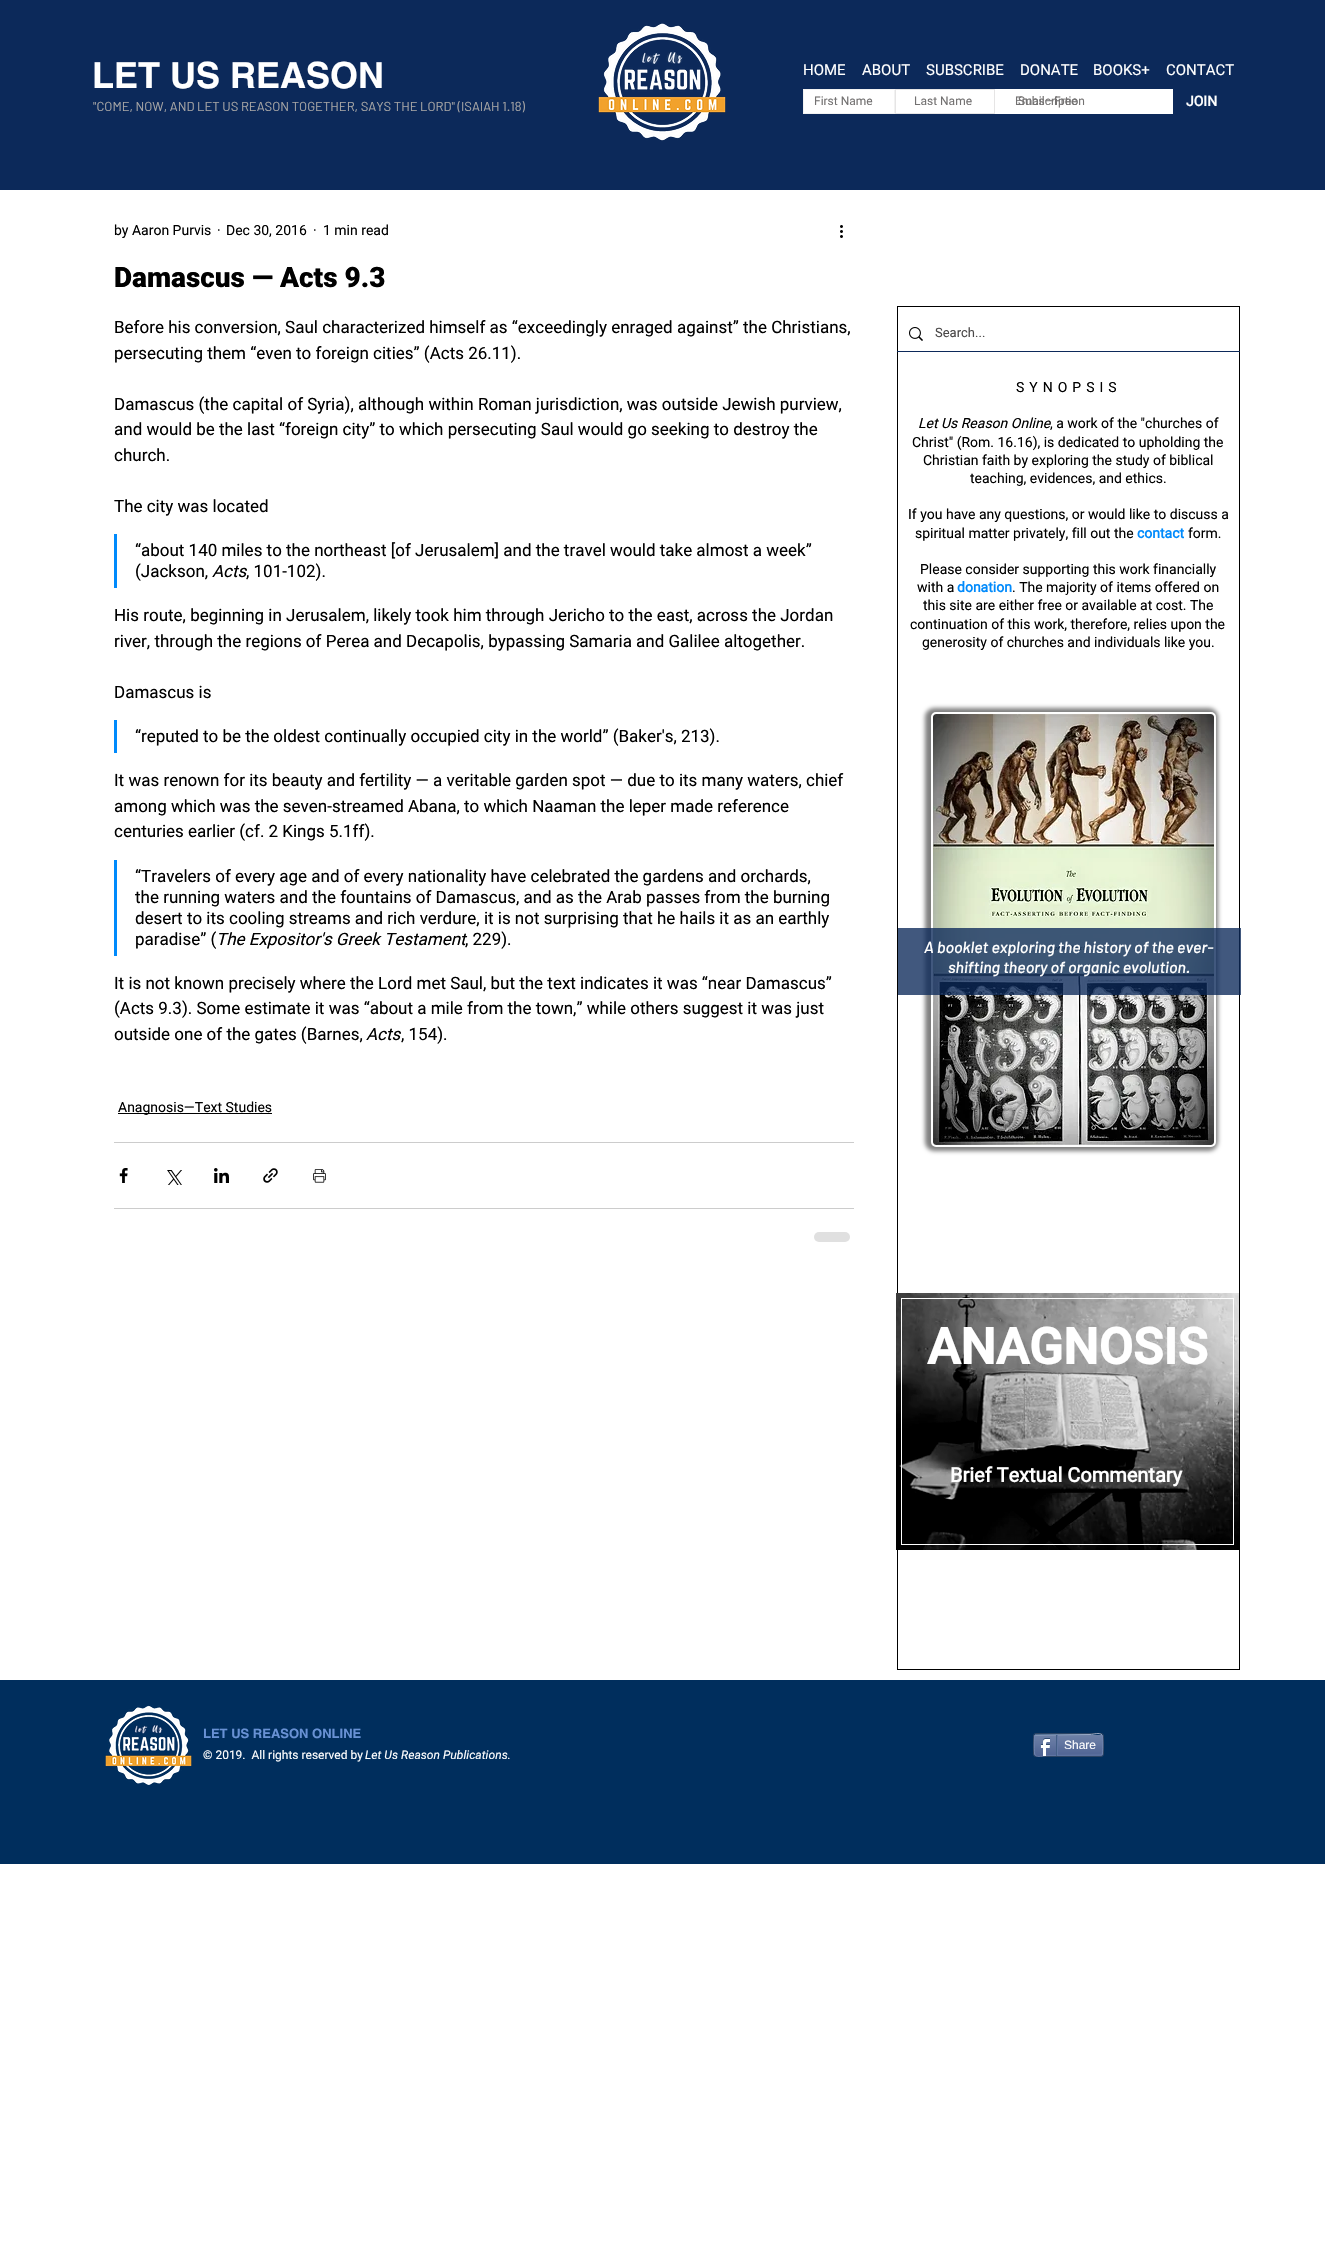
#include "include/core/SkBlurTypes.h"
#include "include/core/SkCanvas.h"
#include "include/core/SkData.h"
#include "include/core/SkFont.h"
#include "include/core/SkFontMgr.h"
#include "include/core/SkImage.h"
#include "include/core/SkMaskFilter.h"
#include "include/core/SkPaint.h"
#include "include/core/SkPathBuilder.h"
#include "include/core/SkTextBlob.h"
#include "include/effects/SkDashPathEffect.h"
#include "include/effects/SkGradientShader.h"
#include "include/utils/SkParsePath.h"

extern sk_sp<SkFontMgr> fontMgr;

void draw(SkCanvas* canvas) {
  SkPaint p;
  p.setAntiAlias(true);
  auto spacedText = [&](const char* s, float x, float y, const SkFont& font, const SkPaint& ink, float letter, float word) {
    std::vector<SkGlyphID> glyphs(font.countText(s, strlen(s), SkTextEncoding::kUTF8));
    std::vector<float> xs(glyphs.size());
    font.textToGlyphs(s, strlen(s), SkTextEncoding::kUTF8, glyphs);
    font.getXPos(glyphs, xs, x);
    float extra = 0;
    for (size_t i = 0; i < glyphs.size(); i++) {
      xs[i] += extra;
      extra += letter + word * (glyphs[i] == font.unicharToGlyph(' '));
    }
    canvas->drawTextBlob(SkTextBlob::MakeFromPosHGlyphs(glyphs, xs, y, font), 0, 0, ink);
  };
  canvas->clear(SK_ColorWHITE);
  p.setColor(SkColorSetRGB(12, 41, 90));
  canvas->drawRect(SkRect::MakeLTRB(0, 0, 1325, 190), p);
  canvas->drawImageRect(SkImages::DeferredFromEncodedData(SkData::MakeFromFileName("images/1.png")), SkRect::MakeLTRB(598, 23, 726, 141), SkSamplingOptions());
  p.setColor(SK_ColorWHITE);
  canvas->drawRect(SkRect::MakeLTRB(803.5f, 89.5f, 894.5f, 113.5f), p);
  p.setStyle(SkPaint::kStroke_Style);
  p.setStrokeWidth(1);
  p.setColor(SkColorSetRGB(242, 242, 242));
  canvas->drawRect(SkRect::MakeLTRB(803.5f, 89.5f, 894.5f, 113.5f), p);
  p.setStyle(SkPaint::kFill_Style);
  p.setColor(SK_ColorWHITE);
  canvas->drawRect(SkRect::MakeLTRB(895.5f, 89.5f, 994.5f, 113.5f), p);
  p.setStyle(SkPaint::kStroke_Style);
  p.setColor(SkColorSetRGB(230, 229, 229));
  canvas->drawRect(SkRect::MakeLTRB(895.5f, 89.5f, 994.5f, 113.5f), p);
  p.setStyle(SkPaint::kFill_Style);
  p.setColor(SK_ColorWHITE);
  canvas->drawRect(SkRect::MakeLTRB(995, 89, 1173, 114), p);
  canvas->drawImageRect(SkImages::DeferredFromEncodedData(SkData::MakeFromFileName("images/2.png")), SkRect::MakeLTRB(840, 225, 843, 238), SkSamplingOptions());
  p.setColor(SkColorSetRGB(0, 138, 252));
  canvas->drawRect(SkRect::MakeLTRB(114, 534, 117, 588), p);
  canvas->drawRect(SkRect::MakeLTRB(114, 720, 117, 753), p);
  canvas->drawRect(SkRect::MakeLTRB(114, 860, 117, 956), p);
  p.setColor(SK_ColorBLACK);
  canvas->drawRect(SkRect::MakeLTRB(118, 1113, 272, 1114), p);
  p.setColor(SkColorSetRGB(204, 204, 204));
  canvas->drawRect(SkRect::MakeLTRB(114, 1142, 854, 1143), p);
  canvas->drawImageRect(SkImages::DeferredFromEncodedData(SkData::MakeFromFileName("images/3.png")), SkRect::MakeLTRB(119, 1168, 128, 1183), SkSamplingOptions());
  canvas->drawImageRect(SkImages::DeferredFromEncodedData(SkData::MakeFromFileName("images/4.png")), SkRect::MakeLTRB(167, 1170, 182, 1185), SkSamplingOptions());
  canvas->drawImageRect(SkImages::DeferredFromEncodedData(SkData::MakeFromFileName("images/5.png")), SkRect::MakeLTRB(214, 1168, 229, 1183), SkSamplingOptions());
  canvas->drawImageRect(SkImages::DeferredFromEncodedData(SkData::MakeFromFileName("images/6.png")), SkRect::MakeLTRB(263, 1168, 278, 1183), SkSamplingOptions());
  canvas->drawImageRect(SkImages::DeferredFromEncodedData(SkData::MakeFromFileName("images/7.png")), SkRect::MakeLTRB(313, 1169, 326, 1183), SkSamplingOptions());
  canvas->drawRect(SkRect::MakeLTRB(114, 1208, 854, 1209), p);
  p.setColor(SkColorSetRGB(224, 224, 224));
  canvas->drawRoundRect(SkRect::MakeLTRB(814, 1232, 850, 1242), 5, 5, p);
  p.setStyle(SkPaint::kStroke_Style);
  p.setColor(SK_ColorBLACK);
  canvas->drawRect(SkRect::MakeLTRB(897.5f, 306.5f, 1239.5f, 1669.5f), p);
  p.setStyle(SkPaint::kFill_Style);
  p.setColor(SkColorSetRGB(12, 41, 90));
  canvas->drawRect(SkRect::MakeLTRB(897, 351, 1240, 352), p);
  canvas->drawImageRect(SkImages::DeferredFromEncodedData(SkData::MakeFromFileName("images/8.png")), SkRect::MakeLTRB(909, 327, 923, 341), SkSamplingOptions());
  p.setColor(SkColorSetARGB(128, 0, 0, 0));
  p.setMaskFilter(SkMaskFilter::MakeBlur(kNormal_SkBlurStyle, 2));
  canvas->drawRoundRect(SkRect::MakeLTRB(925, 708, 1218, 1151), 9, 9, p);
  p.setMaskFilter(nullptr);
  p.setColor(SK_ColorWHITE);
  canvas->drawRoundRect(SkRect::MakeLTRB(932, 713, 1215, 1146), 4, 4, p);
  p.setStyle(SkPaint::kStroke_Style);
  p.setStrokeWidth(2);
  canvas->drawRoundRect(SkRect::MakeLTRB(932, 713, 1215, 1146), 4, 4, p);
  canvas->drawImageRect(SkImages::DeferredFromEncodedData(SkData::MakeFromFileName("images/9.png")), SkRect::MakeLTRB(933, 714, 1214, 1145), SkSamplingOptions());
  p.setStyle(SkPaint::kFill_Style);
  p.setColor(SkColorSetARGB(199, 12, 41, 90));
  canvas->drawRect(SkRect::MakeLTRB(898, 928, 1241, 995), p);
  canvas->drawImageRect(SkImages::DeferredFromEncodedData(SkData::MakeFromFileName("images/10.png")), SkRect::MakeLTRB(896, 1293, 1239, 1550), SkSamplingOptions());
  p.setStyle(SkPaint::kStroke_Style);
  p.setStrokeWidth(1);
  p.setColor(SK_ColorWHITE);
  canvas->drawRect(SkRect::MakeLTRB(901.5f, 1298.5f, 1233.5f, 1544.5f), p);
  p.setStyle(SkPaint::kFill_Style);
  p.setColor(SkColorSetRGB(0, 46, 93));
  canvas->drawRect(SkRect::MakeLTRB(0, 1680, 1325, 1864), p);
  canvas->drawImageRect(SkImages::DeferredFromEncodedData(SkData::MakeFromFileName("images/11.png")), SkRect::MakeLTRB(105, 1705, 192, 1785), SkSamplingOptions());
  p.setStyle(SkPaint::kStroke_Style);
  p.setColor(SkColorSetRGB(45, 69, 101));
  canvas->drawRoundRect(SkRect::MakeLTRB(1033.5f, 1733.5f, 1103.5f, 1756.5f), 2.5f, 2.5f, p);
  canvas->drawImageRect(SkImages::DeferredFromEncodedData(SkData::MakeFromFileName("images/12.png")), SkRect::MakeLTRB(1034, 1735, 1103, 1756), SkSamplingOptions());
  p.setColor(SkColorSetRGB(154, 171, 198));
  canvas->drawPath(SkPathBuilder().moveTo(1035, 1735).lineTo(1090, 1734.5f).cubicTo(1094, 1734.5f, 1099, 1732, 1102, 1735).detach(), p);
  p.setColor(SkColorSetRGB(111, 131, 173));
  canvas->drawPath(SkPathBuilder().moveTo(1102, 1735).cubicTo(1103, 1735.5f, 1103, 1754.5f, 1102, 1755).detach(), p);
  p.setColor(SkColorSetRGB(97, 118, 163));
  canvas->drawPath(SkPathBuilder().moveTo(1102, 1755).lineTo(1047, 1755.5f).cubicTo(1043, 1755.5f, 1038, 1758, 1035, 1755).detach(), p);
  p.setColor(SkColorSetRGB(111, 131, 173));
  canvas->drawPath(SkPathBuilder().moveTo(1035, 1755).cubicTo(1034, 1754.5f, 1034, 1735.5f, 1035, 1735).detach(), p);
  canvas->drawImageRect(SkImages::DeferredFromEncodedData(SkData::MakeFromFileName("images/13.png")), SkRect::MakeLTRB(1040, 1738, 1050, 1756), SkSamplingOptions());
  p.setStyle(SkPaint::kFill_Style);
  p.setColor(SkColorSetRGB(66, 94, 133));
  canvas->drawRect(SkRect::MakeLTRB(1056, 1735, 1057, 1756), p);
  p.setColor(SkColorSetRGB(97, 118, 163));
  canvas->drawRect(SkRect::MakeLTRB(1057, 1735, 1058, 1755), p);
  SkFont font1(fontMgr->matchFamilyStyle("helvetica", SkFontStyle::Bold()), 36);
  font1.setSubpixel(true);
  p.setColor(SK_ColorWHITE);
  canvas->drawString("LET US REASON", 92, 88, font1, p);
  SkFont font2(fontMgr->matchFamilyStyle("Roboto", SkFontStyle::Normal()), 15);
  font2.setSubpixel(true);
  canvas->drawString("HOME", 803, 75, font2, p);
  canvas->drawString("ABOUT", 862, 75, font2, p);
  canvas->drawString("SUBSCRIBE", 926, 75, font2, p);
  canvas->drawString("DONATE", 1020, 75, font2, p);
  canvas->drawString("BOOKS+", 1093, 75, font2, p);
  canvas->drawString("CONTACT", 1166, 75, font2, p);
  SkFont font3(fontMgr->matchFamilyStyle("Barlow", SkFontStyle::Normal()), 13);
  font3.setSubpixel(true);
  p.setColor(SkColorSetRGB(166, 165, 165));
  canvas->drawString("\"COME, NOW, AND LET US REASON TOGETHER, SAYS THE LORD\" (ISAIAH 1.18)", 93, 111, font3, p);
  SkFont font4(fontMgr->matchFamilyStyle("Roboto", SkFontStyle::Normal()), 12);
  font4.setSubpixel(true);
  p.setColor(SkColorSetRGB(115, 113, 113));
  canvas->drawString("First Name", 814, 105, font4, p);
  canvas->drawString("Last Name", 914, 105, font4, p);
  canvas->drawString("Email—Free", 1015, 105, font4, p);
  canvas->drawString("Subscription", 1018, 105, font4, p);
  SkFont font5(fontMgr->matchFamilyStyle("Roboto", SkFontStyle::Bold()), 14);
  font5.setSubpixel(true);
  p.setColor(SK_ColorWHITE);
  canvas->drawString("JOIN", 1186, 106, font5, p);
  SkFont font6(fontMgr->matchFamilyStyle("Roboto", SkFontStyle::Normal()), 14);
  font6.setSubpixel(true);
  p.setColor(SK_ColorBLACK);
  canvas->drawString("by Aaron Purvis", 114, 235, font6, p);
  canvas->drawString("·", 217, 235, font6, p);
  canvas->drawString("Dec 30, 2016", 226, 235, font6, p);
  canvas->drawString("·", 313, 235, font6, p);
  canvas->drawString("1 min read", 323, 235, font6, p);
  SkFont font7(fontMgr->matchFamilyStyle("Roboto", SkFontStyle(900, SkFontStyle::kNormal_Width, SkFontStyle::kUpright_Slant)), 28);
  font7.setSubpixel(true);
  canvas->drawString("Damascus — Acts 9.3", 114, 287, font7, p);
  SkFont font8(fontMgr->matchFamilyStyle("Roboto", SkFontStyle::Normal()), 17);
  font8.setSubpixel(true);
  canvas->drawString("Before his conversion, Saul characterized himself as “exceedingly enraged against” the Christians,", 114, 333, font8, p);
  canvas->drawString("persecuting them “even to foreign cities” (Acts 26.11).", 114, 359, font8, p);
  canvas->drawString("Damascus (the capital of Syria), although within Roman jurisdiction, was outside Jewish purview,", 114, 410, font8, p);
  canvas->drawString("and would be the last “foreign city” to which persecuting Saul would go seeking to destroy the", 114, 435, font8, p);
  canvas->drawString("church.", 114, 461, font8, p);
  canvas->drawString("The city was located", 114, 512, font8, p);
  canvas->drawString("“about 140 miles to the northeast [of Jerusalem] and the travel would take almost a week”", 135, 556, font8, p);
  canvas->drawString("(Jackson,", 135, 577, font8, p);
  SkFont font9(fontMgr->matchFamilyStyle("Roboto", SkFontStyle::Italic()), 17);
  font9.setSubpixel(true);
  canvas->drawString("Acts", 212, 577, font9, p);
  canvas->drawString(", 101-102).", 246, 577, font8, p);
  canvas->drawString("His route, beginning in Jerusalem, likely took him through Jericho to the east, across the Jordan", 114, 621, font8, p);
  canvas->drawString("river, through the regions of Perea and Decapolis, bypassing Samaria and Galilee altogether.", 114, 647, font8, p);
  canvas->drawString("Damascus is", 114, 698, font8, p);
  canvas->drawString("“reputed to be the oldest continually occupied city in the world” (Baker's, 213).", 135, 742, font8, p);
  canvas->drawString("It was renown for its beauty and fertility — a veritable garden spot — due to its many waters, chief", 114, 786, font8, p);
  canvas->drawString("among which was the seven-streamed Abana, to which Naaman the leper made reference", 114, 812, font8, p);
  canvas->drawString("centuries earlier (cf. 2 Kings 5.1ff).", 114, 837, font8, p);
  canvas->drawString("“Travelers of every age and of every nationality have celebrated the gardens and orchards,", 135, 882, font8, p);
  canvas->drawString("the running waters and the fountains of Damascus, and as the Arab passes from the burning", 135, 903, font8, p);
  canvas->drawString("desert to its cooling streams and rich verdure, it is not surprising that he hails it as an earthly", 135, 924, font8, p);
  canvas->drawString("paradise” (", 135, 945, font8, p);
  canvas->drawString("The Expositor's Greek Testament", 216, 945, font9, p);
  canvas->drawString(", 229).", 465, 945, font8, p);
  canvas->drawString("It is not known precisely where the Lord met Saul, but the text indicates it was “near Damascus”", 114, 989, font8, p);
  canvas->drawString("(Acts 9.3). Some estimate it was “about a mile from the town,” while others suggest it was just", 114, 1014, font8, p);
  canvas->drawString("outside one of the gates (Barnes,", 114, 1040, font8, p);
  canvas->drawString("Acts", 366, 1040, font9, p);
  canvas->drawString(", 154).", 401, 1040, font8, p);
  canvas->drawString("Anagnosis—Text Studies", 118, 1112, font6, p);
  SkFont font10(fontMgr->matchFamilyStyle("Roboto", SkFontStyle::Normal()), 13);
  font10.setSubpixel(true);
  p.setColor(SkColorSetRGB(74, 72, 72));
  canvas->drawString("Search...", 935, 337, font10, p);
  p.setColor(SK_ColorBLACK);
  spacedText("SYNOPSIS", 1016, 392, font6, p, 5, 0);
  SkFont font11(fontMgr->matchFamilyStyle("Roboto", SkFontStyle::Italic()), 14);
  font11.setSubpixel(true);
  canvas->drawString("Let Us Reason Online", 918, 428, font11, p);
  canvas->drawString(", a work of the \"churches of", 1050, 428, font6, p);
  canvas->drawString("Christ\" (Rom. 16.16), is dedicated to upholding the", 912, 447, font6, p);
  canvas->drawString("Christian faith by exploring the study of biblical", 923, 465, font6, p);
  canvas->drawString("teaching, evidences, and ethics.", 970, 483, font6, p);
  canvas->drawString("If you have any questions, or would like to discuss a", 908, 519, font6, p);
  canvas->drawString("spiritual matter privately, fill out the", 915, 538, font6, p);
  p.setColor(SkColorSetRGB(0, 138, 252));
  canvas->drawString("contact", 1137, 538, font5, p);
  p.setColor(SK_ColorBLACK);
  canvas->drawString("form.", 1188, 538, font6, p);
  canvas->drawString("Please consider supporting this work financially", 920, 574, font6, p);
  canvas->drawString("with a", 917, 592, font6, p);
  p.setColor(SkColorSetRGB(0, 138, 252));
  canvas->drawString("donation", 957, 592, font5, p);
  p.setColor(SK_ColorBLACK);
  canvas->drawString(". The majority of items offered on", 1012, 592, font6, p);
  canvas->drawString("this site are either free or available at cost. The", 923, 610, font6, p);
  canvas->drawString("continuation of this work, therefore, relies upon the", 910, 629, font6, p);
  canvas->drawString("generosity of churches and individuals like you.", 922, 647, font6, p);
  SkFont font12(fontMgr->matchFamilyStyle("Barlow", SkFontStyle(500, SkFontStyle::kNormal_Width, SkFontStyle::kItalic_Slant)), 16);
  font12.setSubpixel(true);
  p.setColor(SK_ColorWHITE);
  canvas->drawString("A booklet exploring the history of the ever-", 924, 953, font12, p);
  canvas->drawString("shifting theory of organic evolution.", 948, 973, font12, p);
  SkFont font13(fontMgr->matchFamilyStyle("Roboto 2", SkFontStyle::Bold()), 50);
  font13.setSubpixel(true);
  canvas->drawString("ANAGNOSIS", 927, 1364, font13, p);
  SkFont font14(fontMgr->matchFamilyStyle("Roboto", SkFontStyle::Bold()), 20);
  font14.setSubpixel(true);
  canvas->drawString("Brief Textual Commentary", 950, 1482, font14, p);
  SkFont font15(fontMgr->matchFamilyStyle("helvetica", SkFontStyle::Bold()), 13);
  font15.setSubpixel(true);
  p.setColor(SkColorSetRGB(104, 145, 212));
  canvas->drawString("LET US REASON ONLINE", 203, 1738, font15, p);
  SkFont font16(fontMgr->matchFamilyStyle("Roboto 2", SkFontStyle::Normal()), 12);
  font16.setSubpixel(true);
  p.setColor(SK_ColorWHITE);
  canvas->drawString("© 2019.  All rights reserved by", 203, 1759, font16, p);
  SkFont font17(fontMgr->matchFamilyStyle("Roboto 2", SkFontStyle::Italic()), 12);
  font17.setSubpixel(true);
  canvas->drawString("Let Us Reason Publications.", 365, 1759, font17, p);
  SkFont font18(fontMgr->matchFamilyStyle("Liberation Sans", SkFontStyle::Normal()), 12);
  font18.setSubpixel(true);
  canvas->drawString("Share", 1064, 1749, font18, p);
}
